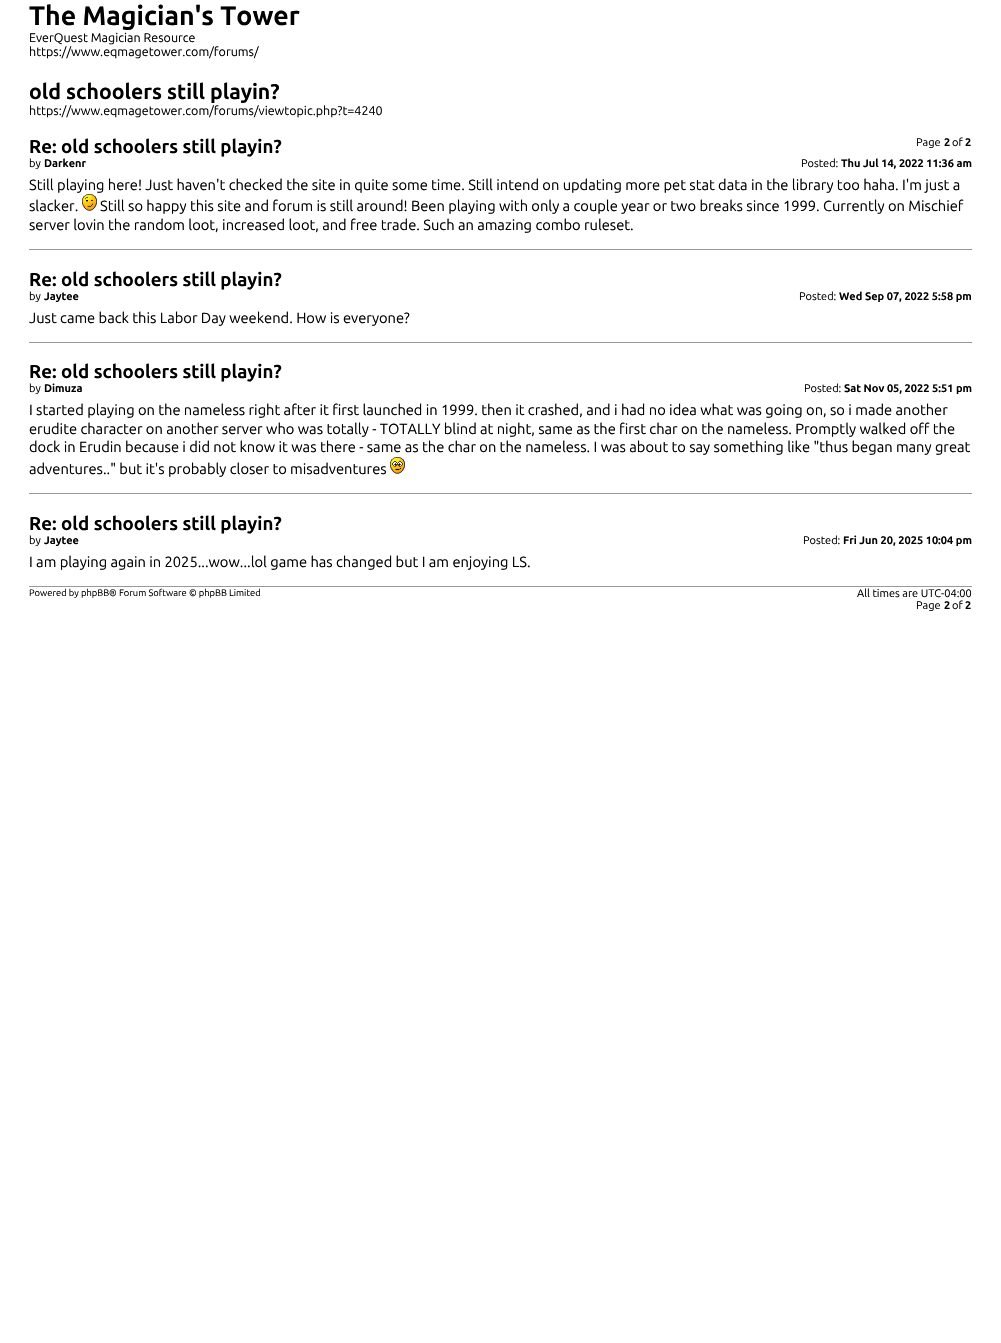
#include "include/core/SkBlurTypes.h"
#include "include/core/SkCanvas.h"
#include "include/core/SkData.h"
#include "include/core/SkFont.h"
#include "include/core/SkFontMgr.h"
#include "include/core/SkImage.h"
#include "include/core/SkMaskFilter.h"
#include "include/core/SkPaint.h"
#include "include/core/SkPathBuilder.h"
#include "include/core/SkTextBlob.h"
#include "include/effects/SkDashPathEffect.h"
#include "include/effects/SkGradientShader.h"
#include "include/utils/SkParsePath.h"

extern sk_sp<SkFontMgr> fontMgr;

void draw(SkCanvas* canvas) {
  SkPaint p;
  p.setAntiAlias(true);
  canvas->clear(SK_ColorWHITE);
  canvas->drawImageRect(SkImages::DeferredFromEncodedData(SkData::MakeFromFileName("images/1.png")), SkRect::MakeLTRB(82, 194, 97, 211), SkSamplingOptions());
  p.setColor(SkColorSetRGB(153, 153, 153));
  canvas->drawRect(SkRect::MakeLTRB(29, 249, 972, 250), p);
  canvas->drawRect(SkRect::MakeLTRB(29, 342, 972, 343), p);
  canvas->drawImageRect(SkImages::DeferredFromEncodedData(SkData::MakeFromFileName("images/2.png")), SkRect::MakeLTRB(390, 457, 405, 474), SkSamplingOptions());
  canvas->drawRect(SkRect::MakeLTRB(29, 493, 972, 494), p);
  canvas->drawRect(SkRect::MakeLTRB(29, 586, 972, 587), p);
  SkFont font1(fontMgr->matchFamilyStyle("Ubuntu", SkFontStyle::Bold()), 26.75f);
  font1.setSubpixel(true);
  p.setColor(SK_ColorBLACK);
  canvas->drawString("The Magician's Tower", 29, 25, font1, p);
  SkFont font2(fontMgr->matchFamilyStyle("Ubuntu", SkFontStyle::Normal()), 12.5f);
  font2.setSubpixel(true);
  canvas->drawString("EverQuest Magician Resource", 29, 42, font2, p);
  canvas->drawString("https://www.eqmagetower.com/forums/", 29, 56, font2, p);
  SkFont font3(fontMgr->matchFamilyStyle("Ubuntu", SkFontStyle::Bold()), 21.25f);
  font3.setSubpixel(true);
  canvas->drawString("old schoolers still playin?", 29, 99, font3, p);
  canvas->drawString("https://www.eqmagetower.com/forums/viewtopic.php?t=4240", 29, 115, font2, p);
  SkFont font4(fontMgr->matchFamilyStyle("Ubuntu", SkFontStyle::Normal()), 11);
  font4.setSubpixel(true);
  canvas->drawString("Page", 916, 146, font4, p);
  SkFont font5(fontMgr->matchFamilyStyle("Ubuntu", SkFontStyle::Bold()), 11);
  font5.setSubpixel(true);
  canvas->drawString("2", 944, 146, font5, p);
  canvas->drawString("of", 952, 146, font4, p);
  canvas->drawString("2", 965, 146, font5, p);
  SkFont font6(fontMgr->matchFamilyStyle("Ubuntu", SkFontStyle::Bold()), 18.7f);
  font6.setSubpixel(true);
  canvas->drawString("Re: old schoolers still playin?", 29, 153, font6, p);
  canvas->drawString("by", 29, 167, font4, p);
  canvas->drawString("Darkenr", 44, 167, font5, p);
  canvas->drawString("Posted:", 801, 167, font4, p);
  canvas->drawString("Thu Jul 14, 2022 11:36 am", 841, 167, font5, p);
  SkFont font7(fontMgr->matchFamilyStyle("Ubuntu", SkFontStyle::Normal()), 14.67f);
  font7.setSubpixel(true);
  canvas->drawString("Still playing here! Just haven't checked the site in quite some time. Still intend on updating more pet stat data in the library too haha. I'm just a", 29, 190, font7, p);
  canvas->drawString("slacker.", 29, 211, font7, p);
  canvas->drawString("Still so happy this site and forum is still around! Been playing with only a couple year or two breaks since 1999. Currently on Mischief", 100, 211, font7, p);
  canvas->drawString("server lovin the random loot, increased loot, and free trade. Such an amazing combo ruleset.", 29, 230, font7, p);
  canvas->drawString("Re: old schoolers still playin?", 29, 286, font6, p);
  canvas->drawString("by", 29, 300, font4, p);
  canvas->drawString("Jaytee", 44, 300, font5, p);
  canvas->drawString("Posted:", 799, 300, font4, p);
  canvas->drawString("Wed Sep 07, 2022 5:58 pm", 839, 300, font5, p);
  canvas->drawString("Just came back this Labor Day weekend. How is everyone?", 29, 323, font7, p);
  canvas->drawString("Re: old schoolers still playin?", 29, 378, font6, p);
  canvas->drawString("by", 29, 392, font4, p);
  canvas->drawString("Dimuza", 44, 392, font5, p);
  canvas->drawString("Posted:", 804, 392, font4, p);
  canvas->drawString("Sat Nov 05, 2022 5:51 pm", 844, 392, font5, p);
  canvas->drawString("I started playing on the nameless right after it first launched in 1999. then it crashed, and i had no idea what was going on, so i made another", 29, 415, font7, p);
  canvas->drawString("erudite character on another server who was totally - TOTALLY blind at night, same as the first char on the nameless. Promptly walked off the", 29, 434, font7, p);
  canvas->drawString("dock in Erudin because i did not know it was there - same as the char on the nameless. I was about to say something like \"thus began many great", 29, 452, font7, p);
  canvas->drawString("adventures..\" but it's probably closer to misadventures", 29, 474, font7, p);
  canvas->drawString("Re: old schoolers still playin?", 29, 530, font6, p);
  canvas->drawString("by", 29, 544, font4, p);
  canvas->drawString("Jaytee", 44, 544, font5, p);
  canvas->drawString("Posted:", 803, 544, font4, p);
  canvas->drawString("Fri Jun 20, 2025 10:04 pm", 843, 544, font5, p);
  canvas->drawString("I am playing again in 2025...wow...lol game has changed but I am enjoying LS.", 29, 567, font7, p);
  SkFont font8(fontMgr->matchFamilyStyle("Ubuntu", SkFontStyle::Normal()), 9.35f);
  font8.setSubpixel(true);
  canvas->drawString("Powered by phpBB® Forum Software © phpBB Limited", 29, 596, font8, p);
  canvas->drawString("All times are UTC-04:00", 857, 597, font4, p);
  canvas->drawString("Page", 916, 609, font4, p);
  canvas->drawString("2", 944, 609, font5, p);
  canvas->drawString("of", 952, 609, font4, p);
  canvas->drawString("2", 965, 609, font5, p);
}
